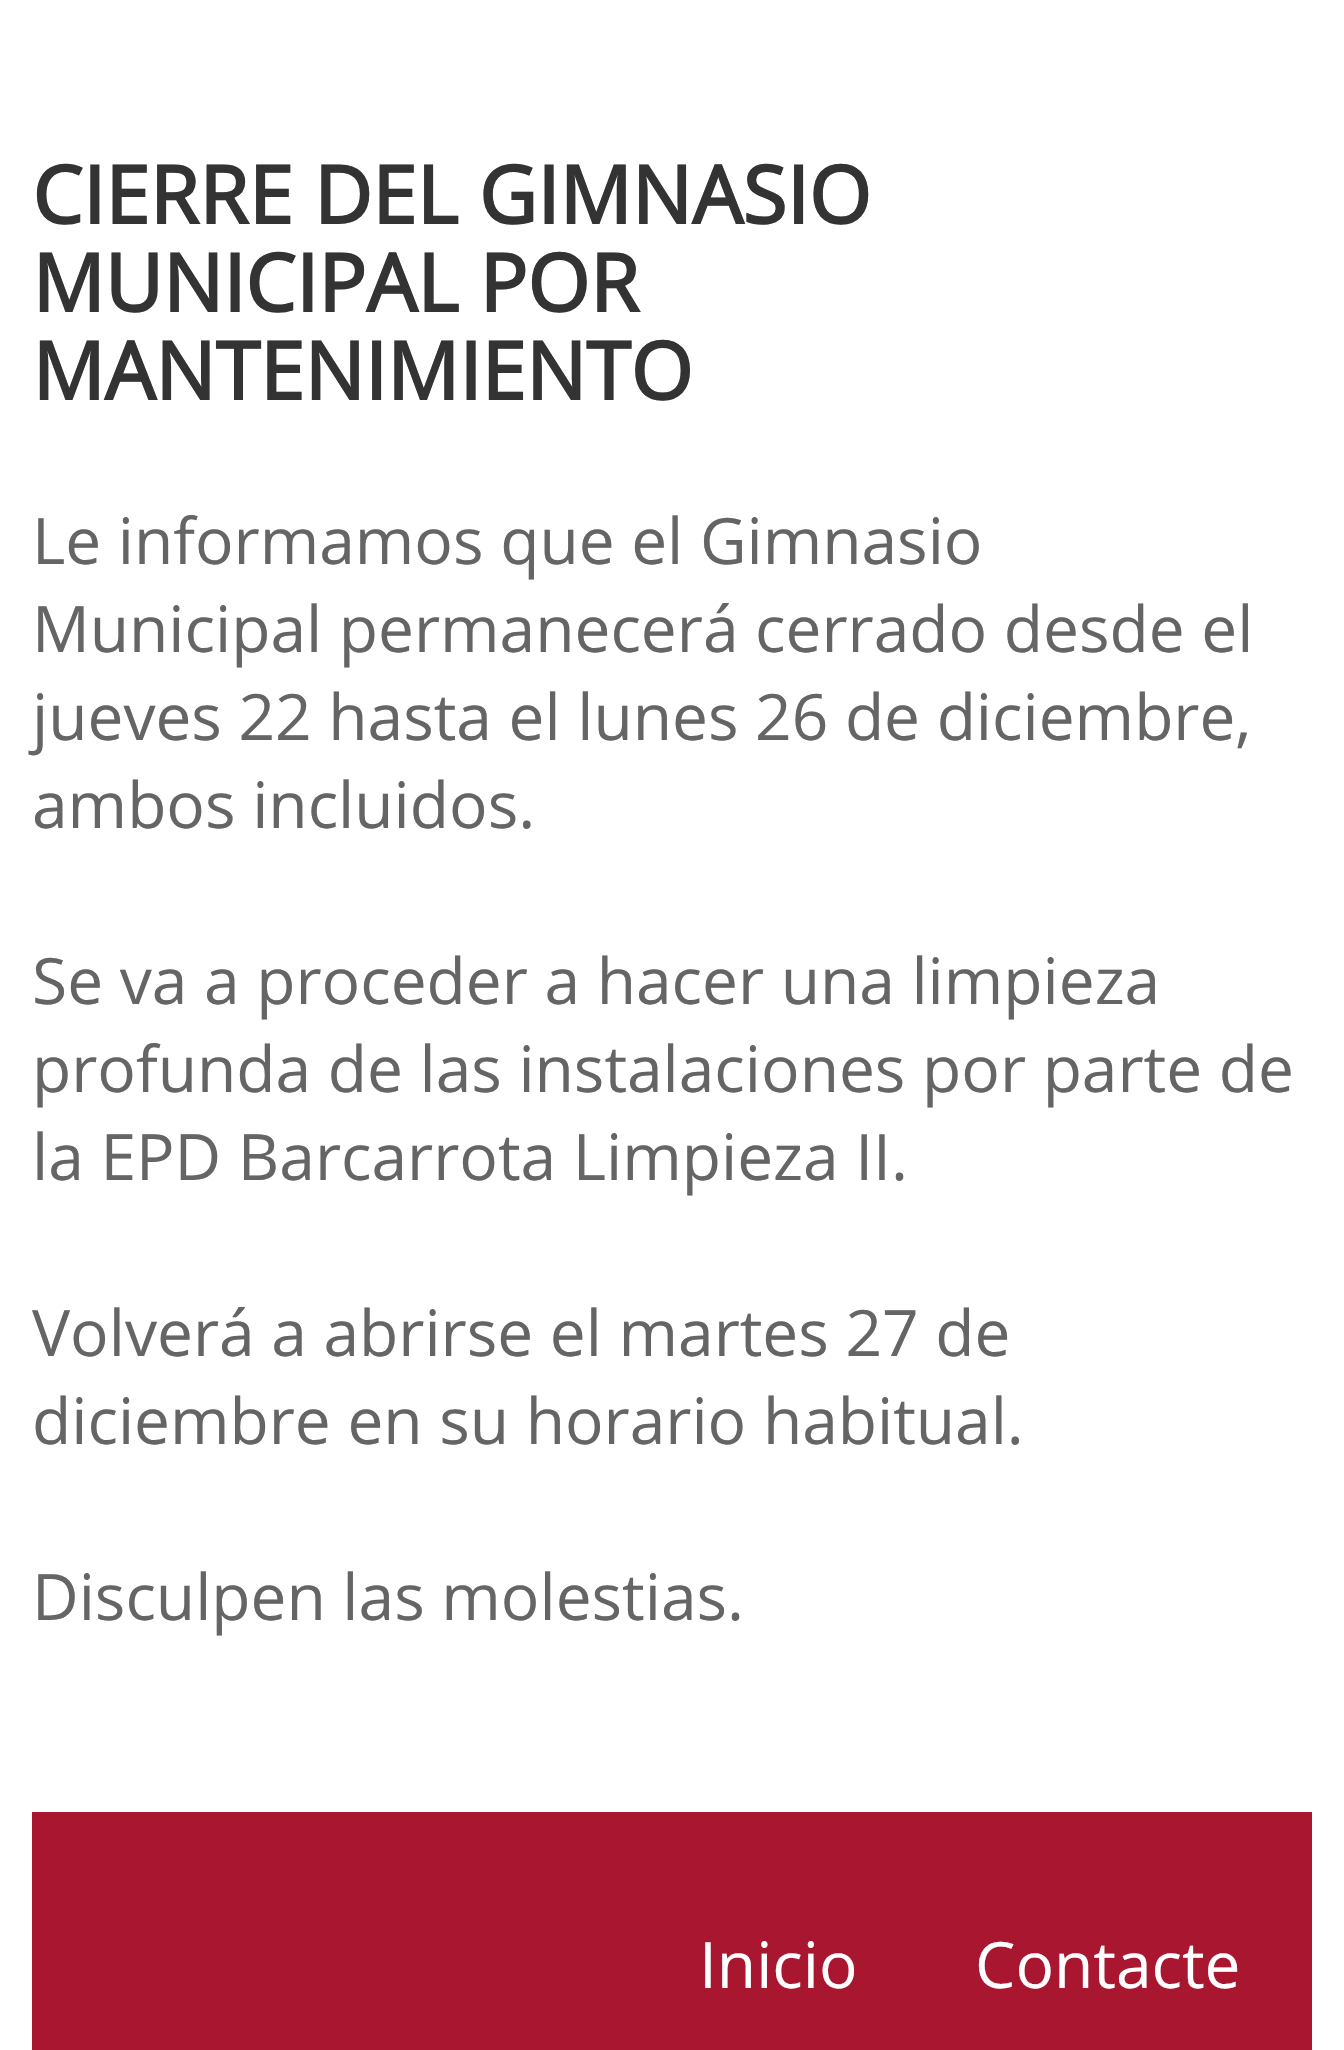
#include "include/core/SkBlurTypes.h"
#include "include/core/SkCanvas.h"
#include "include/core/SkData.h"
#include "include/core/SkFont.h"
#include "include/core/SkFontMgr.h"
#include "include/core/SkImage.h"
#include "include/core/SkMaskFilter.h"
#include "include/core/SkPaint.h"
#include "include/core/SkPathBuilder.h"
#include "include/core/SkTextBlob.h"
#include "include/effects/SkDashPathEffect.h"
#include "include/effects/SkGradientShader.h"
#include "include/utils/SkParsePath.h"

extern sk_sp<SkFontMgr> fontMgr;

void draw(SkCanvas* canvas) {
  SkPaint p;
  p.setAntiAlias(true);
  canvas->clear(SK_ColorWHITE);
  p.setColor(SkColorSetRGB(169, 22, 48));
  canvas->drawRect(SkRect::MakeLTRB(32, 1812, 1312, 2050), p);
  SkFont font1(fontMgr->matchFamilyStyle("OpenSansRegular", SkFontStyle::Bold()), 80);
  font1.setSubpixel(true);
  p.setColor(SkColorSetRGB(51, 51, 51));
  canvas->drawString("CIERRE DEL GIMNASIO", 32, 224, font1, p);
  canvas->drawString("MUNICIPAL POR", 32, 312, font1, p);
  canvas->drawString("MANTENIMIENTO", 32, 400, font1, p);
  SkFont font2(fontMgr->matchFamilyStyle("OpenSansRegular", SkFontStyle::Normal()), 64);
  font2.setSubpixel(true);
  p.setColor(SkColorSetRGB(101, 101, 101));
  canvas->drawString("Le informamos que el Gimnasio", 32, 564, font2, p);
  canvas->drawString("Municipal permanecerá cerrado desde el", 32, 652, font2, p);
  canvas->drawString("jueves 22 hasta el lunes 26 de diciembre,", 32, 740, font2, p);
  canvas->drawString("ambos incluidos.", 32, 828, font2, p);
  canvas->drawString("Se va a proceder a hacer una limpieza", 32, 1004, font2, p);
  canvas->drawString("profunda de las instalaciones por parte de", 32, 1092, font2, p);
  canvas->drawString("la EPD Barcarrota Limpieza II.", 32, 1180, font2, p);
  canvas->drawString("Volverá a abrirse el martes 27 de", 32, 1356, font2, p);
  canvas->drawString("diciembre en su horario habitual.", 32, 1444, font2, p);
  canvas->drawString("Disculpen las molestias.", 32, 1620, font2, p);
  p.setColor(SK_ColorWHITE);
  canvas->drawString("Inicio", 699, 1988, font2, p);
  canvas->drawString("Contacte", 975, 1988, font2, p);
}
